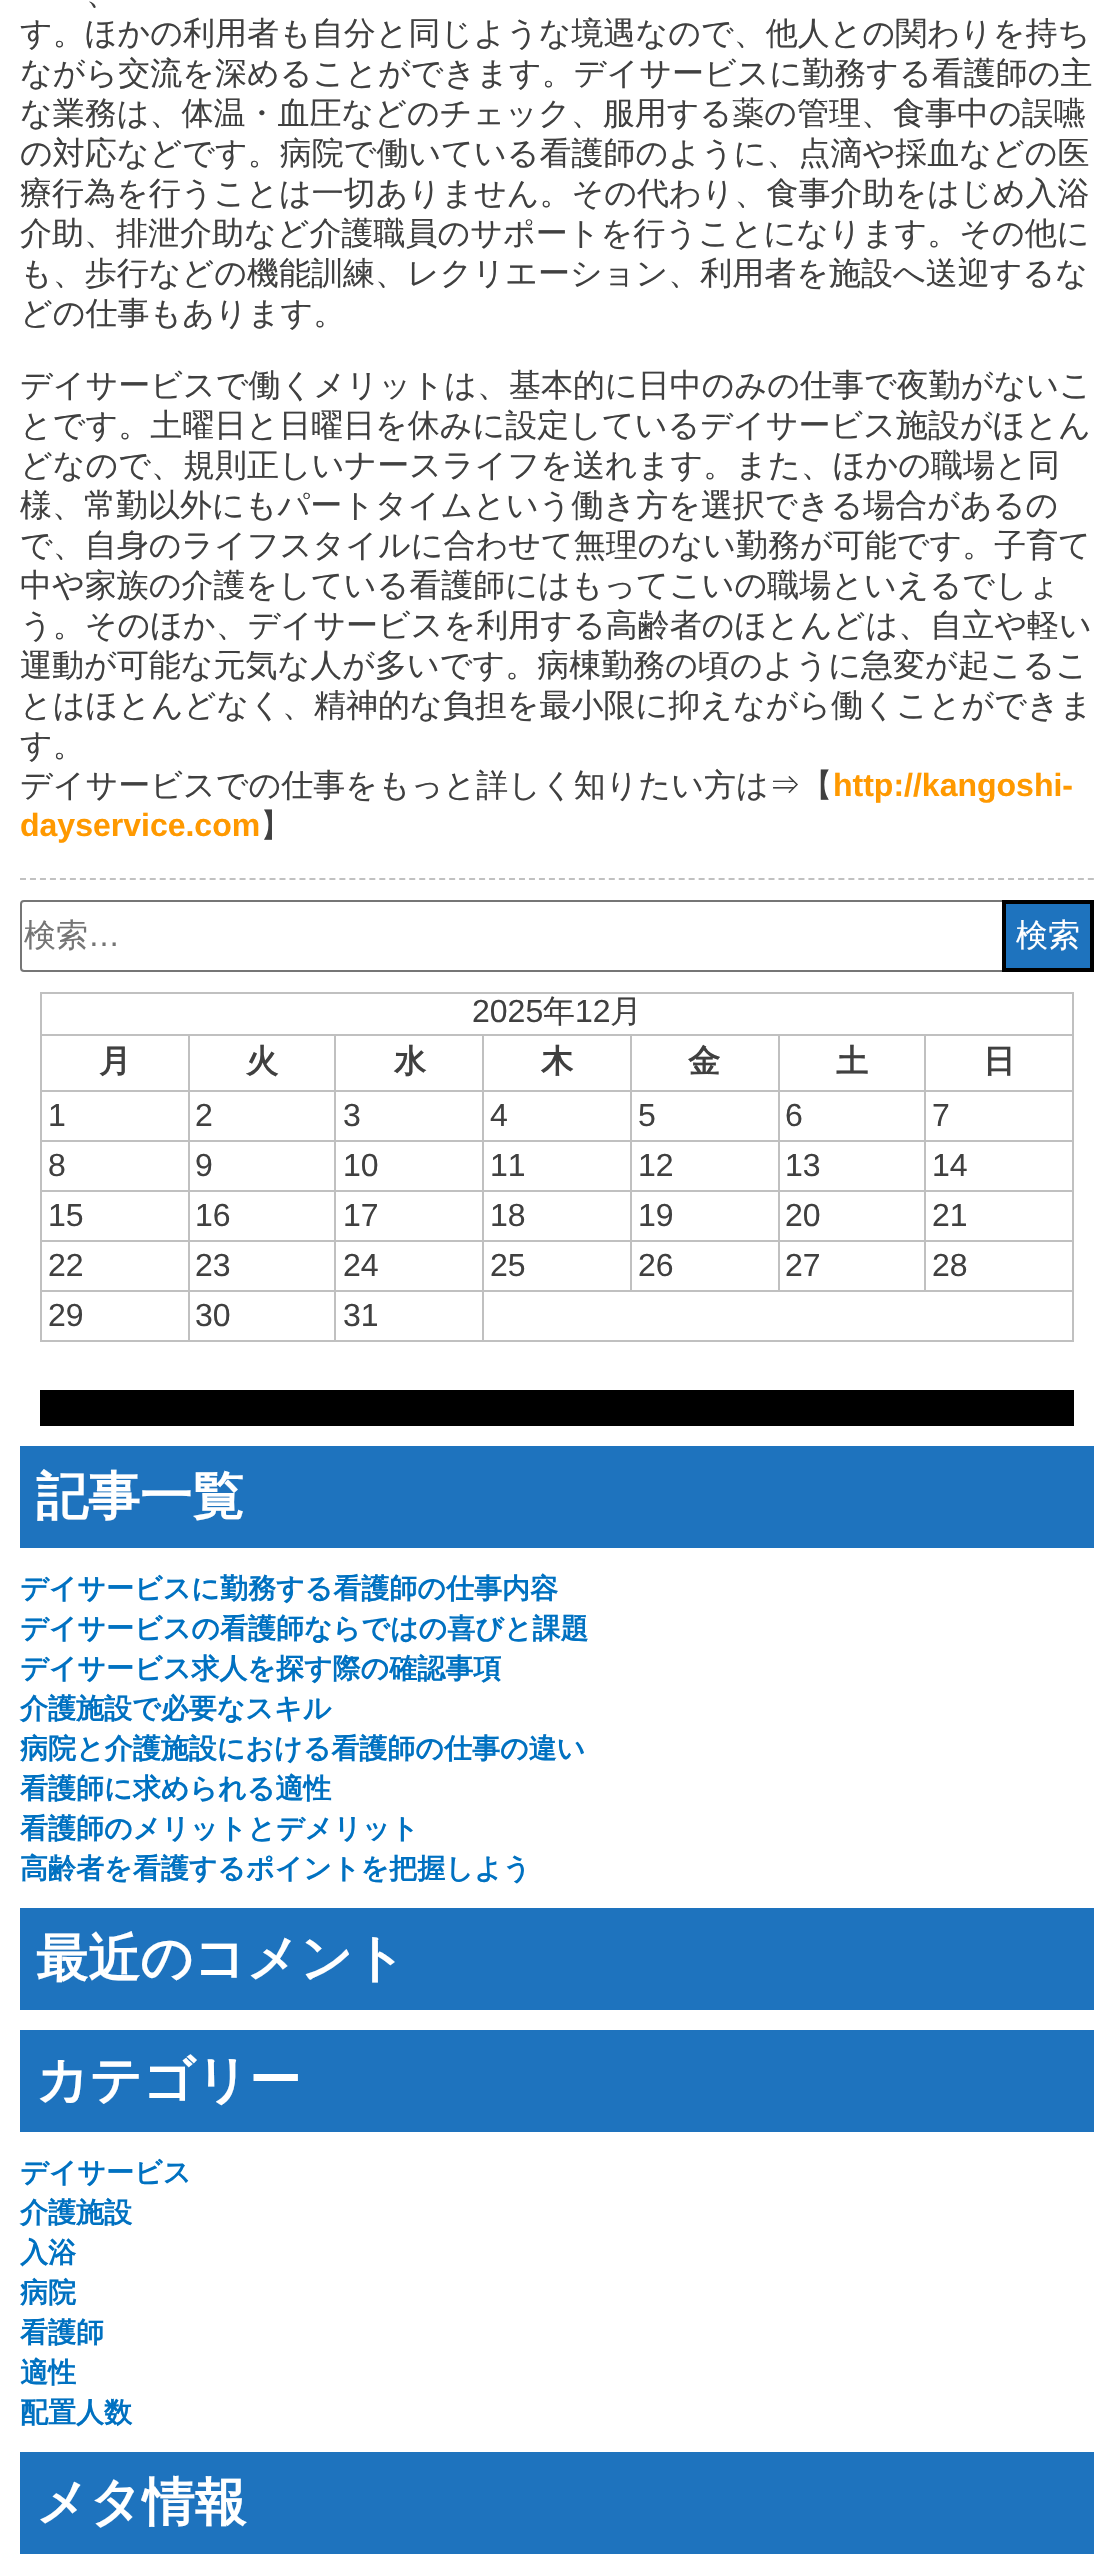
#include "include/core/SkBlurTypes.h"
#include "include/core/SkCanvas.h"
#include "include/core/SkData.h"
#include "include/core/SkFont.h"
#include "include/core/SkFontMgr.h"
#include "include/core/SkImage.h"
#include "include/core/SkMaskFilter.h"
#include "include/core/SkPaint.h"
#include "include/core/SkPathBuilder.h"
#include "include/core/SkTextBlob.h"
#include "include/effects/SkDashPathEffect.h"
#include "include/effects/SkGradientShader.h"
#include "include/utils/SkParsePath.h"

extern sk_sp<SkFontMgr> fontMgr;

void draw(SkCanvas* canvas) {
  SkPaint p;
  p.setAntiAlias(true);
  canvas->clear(SK_ColorWHITE);
  p.setStyle(SkPaint::kStroke_Style);
  p.setStrokeWidth(2);
  p.setColor(SkColorSetRGB(193, 193, 193));
  p.setPathEffect(SkDashPathEffect::Make({{6, 3.98f}}, 0));
  canvas->drawPath(SkPathBuilder().moveTo(20, 879).lineTo(1094, 879).detach(), p);
  p.setPathEffect(nullptr);
  p.setColor(SkColorSetRGB(118, 118, 118));
  canvas->drawRoundRect(SkRect::MakeLTRB(21, 901, 1025, 971), 3, 3, p);
  p.setStyle(SkPaint::kFill_Style);
  p.setColor(SkColorSetRGB(30, 115, 190));
  canvas->drawRect(SkRect::MakeLTRB(1004, 902, 1092, 970), p);
  p.setStyle(SkPaint::kStroke_Style);
  p.setStrokeWidth(4);
  p.setColor(SK_ColorBLACK);
  canvas->drawRect(SkRect::MakeLTRB(1004, 902, 1092, 970), p);
  p.setStyle(SkPaint::kFill_Style);
  p.setColor(SkColorSetRGB(192, 192, 192));
  canvas->drawRect(SkRect::MakeLTRB(40, 992, 1074, 994), p);
  canvas->drawRect(SkRect::MakeLTRB(1072, 992, 1074, 1342), p);
  canvas->drawRect(SkRect::MakeLTRB(40, 1340, 1074, 1342), p);
  canvas->drawRect(SkRect::MakeLTRB(40, 992, 42, 1342), p);
  canvas->drawRect(SkRect::MakeLTRB(924, 1034, 1074, 1036), p);
  canvas->drawRect(SkRect::MakeLTRB(924, 1090, 1074, 1092), p);
  canvas->drawRect(SkRect::MakeLTRB(924, 1140, 1074, 1142), p);
  canvas->drawRect(SkRect::MakeLTRB(924, 1190, 1074, 1192), p);
  canvas->drawRect(SkRect::MakeLTRB(924, 1240, 1074, 1242), p);
  canvas->drawRect(SkRect::MakeLTRB(482, 1290, 1074, 1292), p);
  canvas->drawRect(SkRect::MakeLTRB(924, 1240, 926, 1292), p);
  canvas->drawRect(SkRect::MakeLTRB(778, 1240, 926, 1242), p);
  canvas->drawRect(SkRect::MakeLTRB(924, 1190, 926, 1242), p);
  canvas->drawRect(SkRect::MakeLTRB(778, 1190, 926, 1192), p);
  canvas->drawRect(SkRect::MakeLTRB(924, 1140, 926, 1192), p);
  canvas->drawRect(SkRect::MakeLTRB(778, 1140, 926, 1142), p);
  canvas->drawRect(SkRect::MakeLTRB(924, 1090, 926, 1142), p);
  canvas->drawRect(SkRect::MakeLTRB(778, 1090, 926, 1092), p);
  canvas->drawRect(SkRect::MakeLTRB(924, 1034, 926, 1092), p);
  canvas->drawRect(SkRect::MakeLTRB(778, 1034, 926, 1036), p);
  canvas->drawRect(SkRect::MakeLTRB(778, 1240, 780, 1292), p);
  canvas->drawRect(SkRect::MakeLTRB(630, 1240, 780, 1242), p);
  canvas->drawRect(SkRect::MakeLTRB(778, 1190, 780, 1242), p);
  canvas->drawRect(SkRect::MakeLTRB(630, 1190, 780, 1192), p);
  canvas->drawRect(SkRect::MakeLTRB(778, 1140, 780, 1192), p);
  canvas->drawRect(SkRect::MakeLTRB(630, 1140, 780, 1142), p);
  canvas->drawRect(SkRect::MakeLTRB(778, 1090, 780, 1142), p);
  canvas->drawRect(SkRect::MakeLTRB(630, 1090, 780, 1092), p);
  canvas->drawRect(SkRect::MakeLTRB(778, 1034, 780, 1092), p);
  canvas->drawRect(SkRect::MakeLTRB(630, 1034, 780, 1036), p);
  canvas->drawRect(SkRect::MakeLTRB(630, 1240, 632, 1292), p);
  canvas->drawRect(SkRect::MakeLTRB(482, 1240, 632, 1242), p);
  canvas->drawRect(SkRect::MakeLTRB(630, 1190, 632, 1242), p);
  canvas->drawRect(SkRect::MakeLTRB(482, 1190, 632, 1192), p);
  canvas->drawRect(SkRect::MakeLTRB(630, 1140, 632, 1192), p);
  canvas->drawRect(SkRect::MakeLTRB(482, 1140, 632, 1142), p);
  canvas->drawRect(SkRect::MakeLTRB(630, 1090, 632, 1142), p);
  canvas->drawRect(SkRect::MakeLTRB(482, 1090, 632, 1092), p);
  canvas->drawRect(SkRect::MakeLTRB(630, 1034, 632, 1092), p);
  canvas->drawRect(SkRect::MakeLTRB(482, 1034, 632, 1036), p);
  canvas->drawRect(SkRect::MakeLTRB(482, 1290, 484, 1342), p);
  canvas->drawRect(SkRect::MakeLTRB(334, 1290, 484, 1292), p);
  canvas->drawRect(SkRect::MakeLTRB(482, 1240, 484, 1292), p);
  canvas->drawRect(SkRect::MakeLTRB(334, 1240, 484, 1242), p);
  canvas->drawRect(SkRect::MakeLTRB(482, 1190, 484, 1242), p);
  canvas->drawRect(SkRect::MakeLTRB(334, 1190, 484, 1192), p);
  canvas->drawRect(SkRect::MakeLTRB(482, 1140, 484, 1192), p);
  canvas->drawRect(SkRect::MakeLTRB(334, 1140, 484, 1142), p);
  canvas->drawRect(SkRect::MakeLTRB(482, 1090, 484, 1142), p);
  canvas->drawRect(SkRect::MakeLTRB(334, 1090, 484, 1092), p);
  canvas->drawRect(SkRect::MakeLTRB(482, 1034, 484, 1092), p);
  canvas->drawRect(SkRect::MakeLTRB(334, 1034, 484, 1036), p);
  canvas->drawRect(SkRect::MakeLTRB(334, 1290, 336, 1342), p);
  canvas->drawRect(SkRect::MakeLTRB(188, 1290, 336, 1292), p);
  canvas->drawRect(SkRect::MakeLTRB(334, 1240, 336, 1292), p);
  canvas->drawRect(SkRect::MakeLTRB(188, 1240, 336, 1242), p);
  canvas->drawRect(SkRect::MakeLTRB(334, 1190, 336, 1242), p);
  canvas->drawRect(SkRect::MakeLTRB(188, 1190, 336, 1192), p);
  canvas->drawRect(SkRect::MakeLTRB(334, 1140, 336, 1192), p);
  canvas->drawRect(SkRect::MakeLTRB(188, 1140, 336, 1142), p);
  canvas->drawRect(SkRect::MakeLTRB(334, 1090, 336, 1142), p);
  canvas->drawRect(SkRect::MakeLTRB(188, 1090, 336, 1092), p);
  canvas->drawRect(SkRect::MakeLTRB(334, 1034, 336, 1092), p);
  canvas->drawRect(SkRect::MakeLTRB(188, 1034, 336, 1036), p);
  canvas->drawRect(SkRect::MakeLTRB(188, 1290, 190, 1342), p);
  canvas->drawRect(SkRect::MakeLTRB(40, 1290, 190, 1292), p);
  canvas->drawRect(SkRect::MakeLTRB(188, 1240, 190, 1292), p);
  canvas->drawRect(SkRect::MakeLTRB(40, 1240, 190, 1242), p);
  canvas->drawRect(SkRect::MakeLTRB(188, 1190, 190, 1242), p);
  canvas->drawRect(SkRect::MakeLTRB(40, 1190, 190, 1192), p);
  canvas->drawRect(SkRect::MakeLTRB(188, 1140, 190, 1192), p);
  canvas->drawRect(SkRect::MakeLTRB(40, 1140, 190, 1142), p);
  canvas->drawRect(SkRect::MakeLTRB(188, 1090, 190, 1142), p);
  canvas->drawRect(SkRect::MakeLTRB(40, 1090, 190, 1092), p);
  canvas->drawRect(SkRect::MakeLTRB(188, 1034, 190, 1092), p);
  canvas->drawRect(SkRect::MakeLTRB(40, 1034, 190, 1036), p);
  p.setColor(SK_ColorBLACK);
  canvas->drawRect(SkRect::MakeLTRB(40, 1390, 1074, 1426), p);
  p.setColor(SkColorSetRGB(30, 115, 190));
  canvas->drawRect(SkRect::MakeLTRB(20, 1446, 1094, 1548), p);
  canvas->drawRect(SkRect::MakeLTRB(20, 1908, 1094, 2010), p);
  canvas->drawRect(SkRect::MakeLTRB(20, 2030, 1094, 2132), p);
  canvas->drawRect(SkRect::MakeLTRB(20, 2452, 1094, 2554), p);
  SkFont font1(fontMgr->matchFamilyStyle("WenQuanYi Zen Hei", SkFontStyle(500, SkFontStyle::kNormal_Width, SkFontStyle::kUpright_Slant)), 32);
  font1.setSubpixel(true);
  p.setColor(SkColorSetRGB(64, 64, 64));
  canvas->drawString("、", 86, 4, font1, p);
  canvas->drawString("す。ほかの利用者も自分と同じような境遇なので、他人との関わりを持ち", 20, 44, font1, p);
  canvas->drawString("ながら交流を深めることができます。デイサービスに勤務する看護師の主", 20, 84, font1, p);
  canvas->drawString("な業務は、体温・血圧などのチェック、服用する薬の管理、食事中の誤嚥", 20, 124, font1, p);
  canvas->drawString("の対応などです。病院で働いている看護師のように、点滴や採血などの医", 20, 164, font1, p);
  canvas->drawString("療行為を行うことは一切ありません。その代わり、食事介助をはじめ入浴", 20, 204, font1, p);
  canvas->drawString("介助、排泄介助など介護職員のサポートを行うことになります。その他に", 20, 244, font1, p);
  canvas->drawString("も、歩行などの機能訓練、レクリエーション、利用者を施設へ送迎するな", 20, 284, font1, p);
  canvas->drawString("どの仕事もあります。", 20, 324, font1, p);
  canvas->drawString("デイサービスで働くメリットは、基本的に日中のみの仕事で夜勤がないこ", 20, 396, font1, p);
  canvas->drawString("とです。土曜日と日曜日を休みに設定しているデイサービス施設がほとん", 20, 436, font1, p);
  canvas->drawString("どなので、規則正しいナースライフを送れます。また、ほかの職場と同", 20, 476, font1, p);
  canvas->drawString("様、常勤以外にもパートタイムという働き方を選択できる場合があるの", 20, 516, font1, p);
  canvas->drawString("で、自身のライフスタイルに合わせて無理のない勤務が可能です。子育て", 20, 556, font1, p);
  canvas->drawString("中や家族の介護をしている看護師にはもってこいの職場といえるでしょ", 20, 596, font1, p);
  canvas->drawString("う。そのほか、デイサービスを利用する高齢者のほとんどは、自立や軽い", 20, 636, font1, p);
  canvas->drawString("運動が可能な元気な人が多いです。病棟勤務の頃のように急変が起こるこ", 20, 676, font1, p);
  canvas->drawString("とはほとんどなく、精神的な負担を最小限に抑えながら働くことができま", 20, 716, font1, p);
  canvas->drawString("す。", 20, 756, font1, p);
  canvas->drawString("デイサービスでの仕事をもっと詳しく知りたい方は⇒【", 20, 796, font1, p);
  SkFont font2(fontMgr->matchFamilyStyle("Liberation Sans", SkFontStyle::Bold()), 32);
  font2.setSubpixel(true);
  p.setColor(SkColorSetRGB(255, 153, 0));
  canvas->drawString("http://kangoshi-", 833, 796, font2, p);
  canvas->drawString("dayservice.com", 20, 836, font2, p);
  p.setColor(SkColorSetRGB(64, 64, 64));
  canvas->drawString("】", 260, 836, font1, p);
  p.setColor(SkColorSetRGB(117, 117, 117));
  canvas->drawString("検索", 24, 946, font1, p);
  SkFont font3(fontMgr->matchFamilyStyle("Liberation Sans", SkFontStyle::Normal()), 32);
  font3.setSubpixel(true);
  canvas->drawString("…", 88, 946, font3, p);
  p.setColor(SK_ColorWHITE);
  canvas->drawString("検索", 1016, 946, font1, p);
  p.setColor(SkColorSetRGB(64, 64, 64));
  canvas->drawString("2025", 472, 1022, font3, p);
  canvas->drawString("年", 543, 1022, font1, p);
  canvas->drawString("12", 575, 1022, font3, p);
  canvas->drawString("月", 610, 1022, font1, p);
  SkFont font4(fontMgr->matchFamilyStyle("WenQuanYi Zen Hei", SkFontStyle::Bold()), 32);
  font4.setSubpixel(true);
  canvas->drawString("月", 99, 1072, font4, p);
  canvas->drawString("火", 246, 1072, font4, p);
  canvas->drawString("水", 394, 1072, font4, p);
  canvas->drawString("木", 541, 1072, font4, p);
  canvas->drawString("金", 688, 1072, font4, p);
  canvas->drawString("土", 836, 1072, font4, p);
  canvas->drawString("日", 983, 1072, font4, p);
  canvas->drawString("1", 48, 1126, font3, p);
  canvas->drawString("2", 195, 1126, font3, p);
  canvas->drawString("3", 343, 1126, font3, p);
  canvas->drawString("4", 490, 1126, font3, p);
  canvas->drawString("5", 638, 1126, font3, p);
  canvas->drawString("6", 785, 1126, font3, p);
  canvas->drawString("7", 932, 1126, font3, p);
  canvas->drawString("8", 48, 1176, font3, p);
  canvas->drawString("9", 195, 1176, font3, p);
  canvas->drawString("10", 343, 1176, font3, p);
  canvas->drawString("11", 490, 1176, font3, p);
  canvas->drawString("12", 638, 1176, font3, p);
  canvas->drawString("13", 785, 1176, font3, p);
  canvas->drawString("14", 932, 1176, font3, p);
  canvas->drawString("15", 48, 1226, font3, p);
  canvas->drawString("16", 195, 1226, font3, p);
  canvas->drawString("17", 343, 1226, font3, p);
  canvas->drawString("18", 490, 1226, font3, p);
  canvas->drawString("19", 638, 1226, font3, p);
  canvas->drawString("20", 785, 1226, font3, p);
  canvas->drawString("21", 932, 1226, font3, p);
  canvas->drawString("22", 48, 1276, font3, p);
  canvas->drawString("23", 195, 1276, font3, p);
  canvas->drawString("24", 343, 1276, font3, p);
  canvas->drawString("25", 490, 1276, font3, p);
  canvas->drawString("26", 638, 1276, font3, p);
  canvas->drawString("27", 785, 1276, font3, p);
  canvas->drawString("28", 932, 1276, font3, p);
  canvas->drawString("29", 48, 1326, font3, p);
  canvas->drawString("30", 195, 1326, font3, p);
  canvas->drawString("31", 343, 1326, font3, p);
  SkFont font5(fontMgr->matchFamilyStyle("WenQuanYi Zen Hei", SkFontStyle::Bold()), 52);
  font5.setSubpixel(true);
  p.setColor(SK_ColorWHITE);
  canvas->drawString("記事一覧", 36, 1514, font5, p);
  SkFont font6(fontMgr->matchFamilyStyle("WenQuanYi Zen Hei", SkFontStyle::Bold()), 28);
  font6.setSubpixel(true);
  p.setColor(SkColorSetRGB(0, 113, 193));
  canvas->drawString("デイサービスに勤務する看護師の仕事内容", 20, 1598, font6, p);
  canvas->drawString("デイサービスの看護師ならではの喜びと課題", 20, 1638, font6, p);
  canvas->drawString("デイサービス求人を探す際の確認事項", 20, 1678, font6, p);
  canvas->drawString("介護施設で必要なスキル", 20, 1718, font6, p);
  canvas->drawString("病院と介護施設における看護師の仕事の違い", 20, 1758, font6, p);
  canvas->drawString("看護師に求められる適性", 20, 1798, font6, p);
  canvas->drawString("看護師のメリットとデメリット", 20, 1838, font6, p);
  canvas->drawString("高齢者を看護するポイントを把握しよう", 20, 1878, font6, p);
  p.setColor(SK_ColorWHITE);
  canvas->drawString("最近のコメント", 36, 1976, font5, p);
  canvas->drawString("カテゴリー", 36, 2098, font5, p);
  p.setColor(SkColorSetRGB(0, 113, 193));
  canvas->drawString("デイサービス", 20, 2182, font6, p);
  canvas->drawString("介護施設", 20, 2222, font6, p);
  canvas->drawString("入浴", 20, 2262, font6, p);
  canvas->drawString("病院", 20, 2302, font6, p);
  canvas->drawString("看護師", 20, 2342, font6, p);
  canvas->drawString("適性", 20, 2382, font6, p);
  canvas->drawString("配置人数", 20, 2422, font6, p);
  p.setColor(SK_ColorWHITE);
  canvas->drawString("メタ情報", 36, 2520, font5, p);
}
